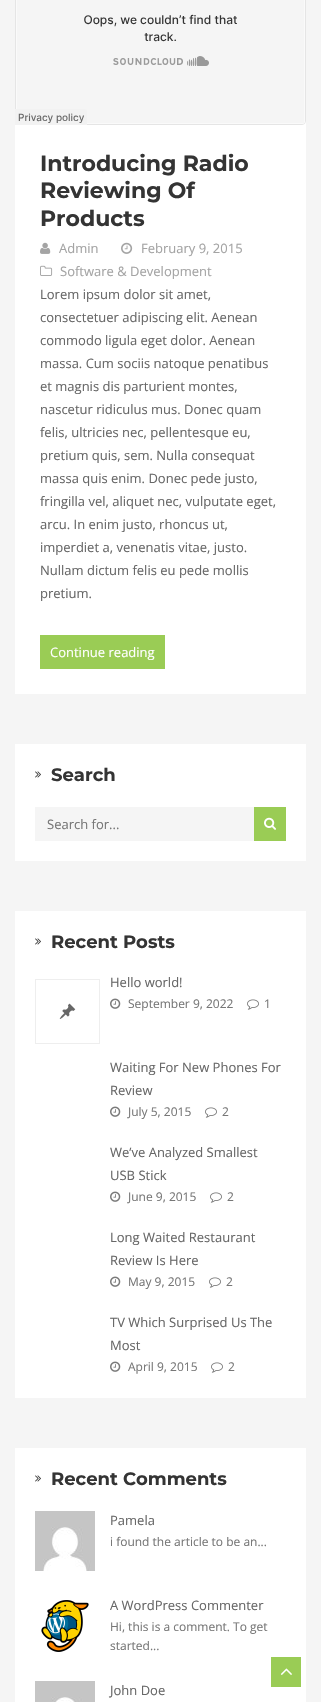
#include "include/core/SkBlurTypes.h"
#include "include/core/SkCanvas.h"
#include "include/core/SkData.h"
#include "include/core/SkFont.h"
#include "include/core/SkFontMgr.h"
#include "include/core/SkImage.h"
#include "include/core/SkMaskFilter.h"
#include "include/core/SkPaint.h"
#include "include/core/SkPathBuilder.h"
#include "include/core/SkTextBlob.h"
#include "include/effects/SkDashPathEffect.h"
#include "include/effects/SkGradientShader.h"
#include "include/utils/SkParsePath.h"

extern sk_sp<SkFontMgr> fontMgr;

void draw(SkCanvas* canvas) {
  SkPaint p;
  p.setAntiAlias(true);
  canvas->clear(SkColorSetRGB(245, 245, 245));
  p.setColor(SK_ColorWHITE);
  canvas->drawRect(SkRect::MakeLTRB(15, 121, 306, 694), p);
  canvas->drawImageRect(SkImages::DeferredFromEncodedData(SkData::MakeFromFileName("images/1.png")), SkRect::MakeLTRB(15, 0, 306, 125), SkSamplingOptions());
  canvas->drawImageRect(SkImages::DeferredFromEncodedData(SkData::MakeFromFileName("images/2.png")), SkRect::MakeLTRB(40, 242, 51, 254), SkSamplingOptions());
  canvas->drawImageRect(SkImages::DeferredFromEncodedData(SkData::MakeFromFileName("images/3.png")), SkRect::MakeLTRB(121, 242, 133, 254), SkSamplingOptions());
  canvas->drawImageRect(SkImages::DeferredFromEncodedData(SkData::MakeFromFileName("images/4.png")), SkRect::MakeLTRB(40, 265, 53, 276), SkSamplingOptions());
  p.setColor(SkColorSetRGB(154, 204, 85));
  canvas->drawRect(SkRect::MakeLTRB(40, 635, 165, 669), p);
  p.setColor(SK_ColorWHITE);
  canvas->drawRect(SkRect::MakeLTRB(15, 744, 306, 861), p);
  canvas->drawImageRect(SkImages::DeferredFromEncodedData(SkData::MakeFromFileName("images/5.png")), SkRect::MakeLTRB(35, 771, 41, 778), SkSamplingOptions());
  p.setColor(SkColorSetRGB(245, 245, 245));
  canvas->drawRect(SkRect::MakeLTRB(35, 807, 254, 841), p);
  p.setColor(SkColorSetRGB(154, 204, 85));
  canvas->drawRect(SkRect::MakeLTRB(254, 807, 286, 841), p);
  canvas->drawImageRect(SkImages::DeferredFromEncodedData(SkData::MakeFromFileName("images/6.png")), SkRect::MakeLTRB(264, 817, 276, 830), SkSamplingOptions());
  p.setColor(SK_ColorWHITE);
  canvas->drawRect(SkRect::MakeLTRB(15, 911, 306, 1398), p);
  canvas->drawImageRect(SkImages::DeferredFromEncodedData(SkData::MakeFromFileName("images/5.png")), SkRect::MakeLTRB(35, 938, 41, 945), SkSamplingOptions());
  p.setStyle(SkPaint::kStroke_Style);
  p.setStrokeWidth(1);
  p.setColor(SkColorSetRGB(238, 238, 238));
  canvas->drawRect(SkRect::MakeLTRB(35.5f, 979.5f, 99.5f, 1043.5f), p);
  canvas->drawImageRect(SkImages::DeferredFromEncodedData(SkData::MakeFromFileName("images/7.png")), SkRect::MakeLTRB(59, 1003, 76, 1019), SkSamplingOptions());
  canvas->drawImageRect(SkImages::DeferredFromEncodedData(SkData::MakeFromFileName("images/8.png")), SkRect::MakeLTRB(110, 998, 121, 1009), SkSamplingOptions());
  canvas->drawImageRect(SkImages::DeferredFromEncodedData(SkData::MakeFromFileName("images/9.png")), SkRect::MakeLTRB(247, 999, 259, 1010), SkSamplingOptions());
  canvas->drawImageRect(SkImages::DeferredFromEncodedData(SkData::MakeFromFileName("images/8.png")), SkRect::MakeLTRB(110, 1106, 121, 1117), SkSamplingOptions());
  canvas->drawImageRect(SkImages::DeferredFromEncodedData(SkData::MakeFromFileName("images/9.png")), SkRect::MakeLTRB(205, 1107, 217, 1118), SkSamplingOptions());
  canvas->drawImageRect(SkImages::DeferredFromEncodedData(SkData::MakeFromFileName("images/8.png")), SkRect::MakeLTRB(110, 1191, 121, 1202), SkSamplingOptions());
  canvas->drawImageRect(SkImages::DeferredFromEncodedData(SkData::MakeFromFileName("images/9.png")), SkRect::MakeLTRB(210, 1192, 222, 1203), SkSamplingOptions());
  canvas->drawImageRect(SkImages::DeferredFromEncodedData(SkData::MakeFromFileName("images/8.png")), SkRect::MakeLTRB(110, 1276, 121, 1287), SkSamplingOptions());
  canvas->drawImageRect(SkImages::DeferredFromEncodedData(SkData::MakeFromFileName("images/9.png")), SkRect::MakeLTRB(209, 1277, 221, 1288), SkSamplingOptions());
  canvas->drawImageRect(SkImages::DeferredFromEncodedData(SkData::MakeFromFileName("images/8.png")), SkRect::MakeLTRB(110, 1361, 121, 1372), SkSamplingOptions());
  canvas->drawImageRect(SkImages::DeferredFromEncodedData(SkData::MakeFromFileName("images/9.png")), SkRect::MakeLTRB(211, 1362, 223, 1373), SkSamplingOptions());
  p.setStyle(SkPaint::kFill_Style);
  p.setColor(SK_ColorWHITE);
  canvas->drawRect(SkRect::MakeLTRB(15, 1448, 306, 1702), p);
  canvas->drawImageRect(SkImages::DeferredFromEncodedData(SkData::MakeFromFileName("images/5.png")), SkRect::MakeLTRB(35, 1475, 41, 1482), SkSamplingOptions());
  canvas->drawImageRect(SkImages::DeferredFromEncodedData(SkData::MakeFromFileName("images/10.png")), SkRect::MakeLTRB(35, 1511, 95, 1571), SkSamplingOptions());
  canvas->drawImageRect(SkImages::DeferredFromEncodedData(SkData::MakeFromFileName("images/11.png")), SkRect::MakeLTRB(41, 1600, 89, 1652), SkSamplingOptions());
  canvas->drawImageRect(SkImages::DeferredFromEncodedData(SkData::MakeFromFileName("images/12.png")), SkRect::MakeLTRB(35, 1681, 95, 1702), SkSamplingOptions());
  p.setColor(SkColorSetRGB(154, 204, 85));
  canvas->drawRect(SkRect::MakeLTRB(271, 1657, 301, 1687), p);
  canvas->drawImageRect(SkImages::DeferredFromEncodedData(SkData::MakeFromFileName("images/13.png")), SkRect::MakeLTRB(280, 1668, 292, 1675), SkSamplingOptions());
  SkFont font1(fontMgr->matchFamilyStyle("Montserrat", SkFontStyle::Bold()), 22);
  font1.setSubpixel(true);
  p.setColor(SkColorSetRGB(52, 52, 52));
  canvas->drawString("Introducing Radio", 40, 171, font1, p);
  canvas->drawString("Reviewing Of", 40, 198, font1, p);
  canvas->drawString("Products", 40, 226, font1, p);
  SkFont font2(fontMgr->matchFamilyStyle("Open Sans", SkFontStyle::Normal()), 13);
  font2.setSubpixel(true);
  p.setColor(SkColorSetRGB(164, 164, 164));
  canvas->drawString("Admin", 59, 253, font2, p);
  canvas->drawString("February 9, 2015", 141, 253, font2, p);
  canvas->drawString("Software & Development", 60, 276, font2, p);
  p.setColor(SkColorSetRGB(103, 103, 103));
  canvas->drawString("Lorem ipsum dolor sit amet,", 40, 299, font2, p);
  canvas->drawString("consectetuer adipiscing elit. Aenean", 40, 322, font2, p);
  canvas->drawString("commodo ligula eget dolor. Aenean", 40, 345, font2, p);
  canvas->drawString("massa. Cum sociis natoque penatibus", 40, 368, font2, p);
  canvas->drawString("et magnis dis parturient montes,", 40, 391, font2, p);
  canvas->drawString("nascetur ridiculus mus. Donec quam", 40, 414, font2, p);
  canvas->drawString("felis, ultricies nec, pellentesque eu,", 40, 437, font2, p);
  canvas->drawString("pretium quis, sem. Nulla consequat", 40, 460, font2, p);
  canvas->drawString("massa quis enim. Donec pede justo,", 40, 483, font2, p);
  canvas->drawString("fringilla vel, aliquet nec, vulputate eget,", 40, 506, font2, p);
  canvas->drawString("arcu. In enim justo, rhoncus ut,", 40, 529, font2, p);
  canvas->drawString("imperdiet a, venenatis vitae, justo.", 40, 552, font2, p);
  canvas->drawString("Nullam dictum felis eu pede mollis", 40, 575, font2, p);
  canvas->drawString("pretium.", 40, 598, font2, p);
  p.setColor(SK_ColorWHITE);
  canvas->drawString("Continue reading", 50, 657, font2, p);
  SkFont font3(fontMgr->matchFamilyStyle("Montserrat", SkFontStyle::Bold()), 18);
  font3.setSubpixel(true);
  p.setColor(SkColorSetRGB(52, 52, 52));
  canvas->drawString("Search", 51, 781, font3, p);
  p.setColor(SkColorSetRGB(119, 119, 119));
  canvas->drawString("Search for...", 47, 829, font2, p);
  p.setColor(SkColorSetRGB(52, 52, 52));
  canvas->drawString("Recent Posts", 51, 948, font3, p);
  p.setColor(SkColorSetRGB(103, 103, 103));
  canvas->drawString("Hello world!", 110, 987, font2, p);
  SkFont font4(fontMgr->matchFamilyStyle("Open Sans", SkFontStyle::Normal()), 12);
  font4.setSubpixel(true);
  p.setColor(SkColorSetRGB(119, 119, 119));
  canvas->drawString("September 9, 2022", 128, 1008, font4, p);
  canvas->drawString("1", 264, 1008, font4, p);
  p.setColor(SkColorSetRGB(103, 103, 103));
  canvas->drawString("Waiting For New Phones For", 110, 1072, font2, p);
  canvas->drawString("Review", 110, 1095, font2, p);
  p.setColor(SkColorSetRGB(119, 119, 119));
  canvas->drawString("July 5, 2015", 128, 1116, font4, p);
  canvas->drawString("2", 222, 1116, font4, p);
  p.setColor(SkColorSetRGB(103, 103, 103));
  canvas->drawString("We’ve Analyzed Smallest", 110, 1157, font2, p);
  canvas->drawString("USB Stick", 110, 1180, font2, p);
  p.setColor(SkColorSetRGB(119, 119, 119));
  canvas->drawString("June 9, 2015", 128, 1201, font4, p);
  canvas->drawString("2", 227, 1201, font4, p);
  p.setColor(SkColorSetRGB(103, 103, 103));
  canvas->drawString("Long Waited Restaurant", 110, 1242, font2, p);
  canvas->drawString("Review Is Here", 110, 1265, font2, p);
  p.setColor(SkColorSetRGB(119, 119, 119));
  canvas->drawString("May 9, 2015", 128, 1286, font4, p);
  canvas->drawString("2", 226, 1286, font4, p);
  p.setColor(SkColorSetRGB(103, 103, 103));
  canvas->drawString("TV Which Surprised Us The", 110, 1327, font2, p);
  canvas->drawString("Most", 110, 1350, font2, p);
  p.setColor(SkColorSetRGB(119, 119, 119));
  canvas->drawString("April 9, 2015", 128, 1371, font4, p);
  canvas->drawString("2", 228, 1371, font4, p);
  p.setColor(SkColorSetRGB(52, 52, 52));
  canvas->drawString("Recent Comments", 51, 1485, font3, p);
  p.setColor(SkColorSetRGB(103, 103, 103));
  canvas->drawString("Pamela", 110, 1525, font2, p);
  p.setColor(SkColorSetRGB(119, 119, 119));
  canvas->drawString("i found the article to be an...", 110, 1546, font4, p);
  p.setColor(SkColorSetRGB(103, 103, 103));
  canvas->drawString("A WordPress Commenter", 110, 1610, font2, p);
  p.setColor(SkColorSetRGB(119, 119, 119));
  canvas->drawString("Hi, this is a comment. To get", 110, 1631, font4, p);
  canvas->drawString("started...", 110, 1650, font4, p);
  p.setColor(SkColorSetRGB(103, 103, 103));
  canvas->drawString("John Doe", 110, 1695, font2, p);
}
